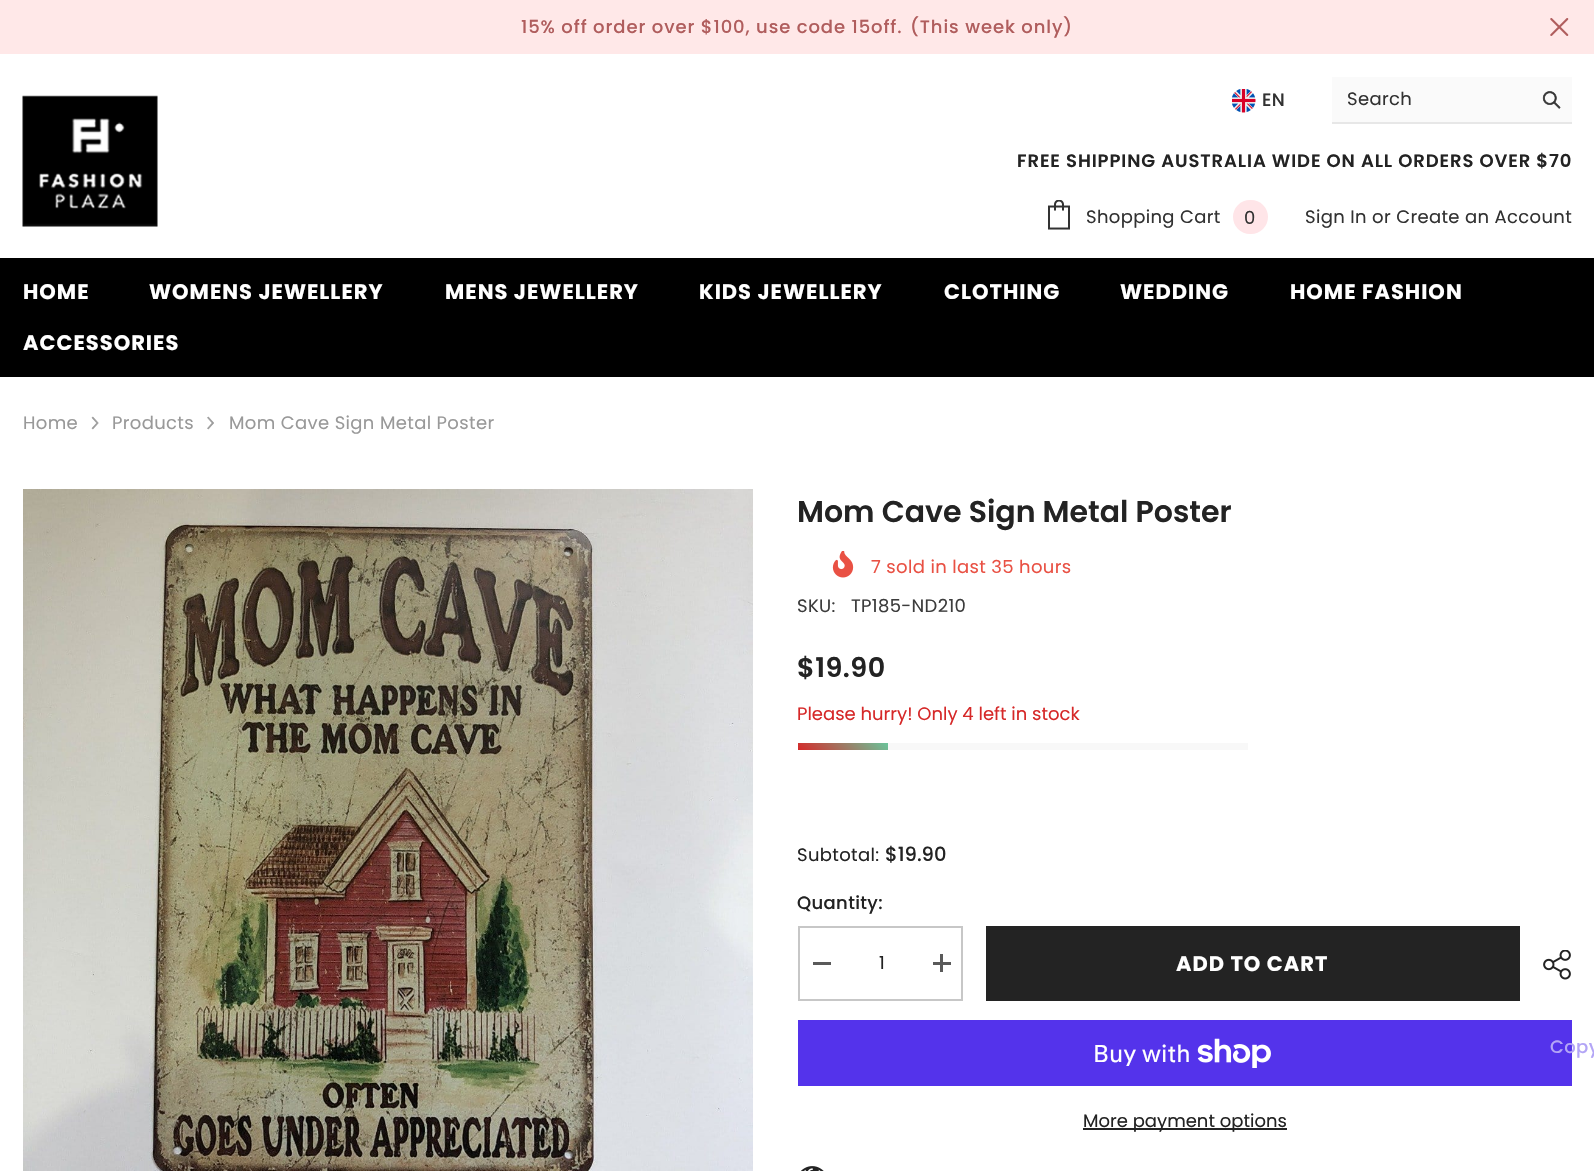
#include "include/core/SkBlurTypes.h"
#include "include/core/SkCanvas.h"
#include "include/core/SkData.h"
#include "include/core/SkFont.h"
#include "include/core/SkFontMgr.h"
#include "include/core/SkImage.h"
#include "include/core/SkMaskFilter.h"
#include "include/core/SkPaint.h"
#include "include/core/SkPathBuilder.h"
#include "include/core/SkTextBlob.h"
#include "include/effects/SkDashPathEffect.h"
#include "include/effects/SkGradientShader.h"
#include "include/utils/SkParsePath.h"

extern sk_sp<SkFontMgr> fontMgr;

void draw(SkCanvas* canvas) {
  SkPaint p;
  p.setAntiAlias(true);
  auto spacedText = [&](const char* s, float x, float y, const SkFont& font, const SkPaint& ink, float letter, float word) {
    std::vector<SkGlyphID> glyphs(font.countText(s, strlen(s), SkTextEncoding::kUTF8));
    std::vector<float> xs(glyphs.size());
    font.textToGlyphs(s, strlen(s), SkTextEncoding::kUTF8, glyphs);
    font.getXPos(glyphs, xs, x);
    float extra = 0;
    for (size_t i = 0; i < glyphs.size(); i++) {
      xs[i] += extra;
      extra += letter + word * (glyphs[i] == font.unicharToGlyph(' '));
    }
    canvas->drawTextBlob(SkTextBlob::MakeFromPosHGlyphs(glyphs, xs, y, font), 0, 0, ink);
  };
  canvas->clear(SK_ColorWHITE);
  p.setColor(SkColorSetRGB(255, 232, 232));
  canvas->drawRect(SkRect::MakeLTRB(0, 0, 1594, 54), p);
  canvas->drawImageRect(SkImages::DeferredFromEncodedData(SkData::MakeFromFileName("images/1.png")), SkRect::MakeLTRB(1550, 18, 1569, 36), SkSamplingOptions());
  canvas->drawImageRect(SkImages::DeferredFromEncodedData(SkData::MakeFromFileName("images/2.png")), SkRect::MakeLTRB(22, 95, 158, 227), SkSamplingOptions());
  canvas->drawImageRect(SkImages::DeferredFromEncodedData(SkData::MakeFromFileName("images/3.png")), SkRect::MakeLTRB(1232, 89, 1256, 113), SkSamplingOptions());
  p.setColor(SkColorSetRGB(250, 250, 250));
  canvas->drawRect(SkRect::MakeLTRB(1332, 77, 1572, 122), p);
  p.setColor(SkColorSetRGB(231, 231, 231));
  canvas->drawRect(SkRect::MakeLTRB(1332, 122, 1572, 124), p);
  canvas->drawImageRect(SkImages::DeferredFromEncodedData(SkData::MakeFromFileName("images/4.png")), SkRect::MakeLTRB(1542, 91, 1561, 109), SkSamplingOptions());
  canvas->drawImageRect(SkImages::DeferredFromEncodedData(SkData::MakeFromFileName("images/5.png")), SkRect::MakeLTRB(1048, 200, 1070, 230), SkSamplingOptions());
  p.setColor(SkColorSetRGB(255, 229, 232));
  canvas->drawRoundRect(SkRect::MakeLTRB(1233, 200, 1268, 234), 17, 17, p);
  p.setColor(SK_ColorBLACK);
  canvas->drawRect(SkRect::MakeLTRB(0, 258, 1594, 377), p);
  canvas->drawImageRect(SkImages::DeferredFromEncodedData(SkData::MakeFromFileName("images/6.png")), SkRect::MakeLTRB(91, 416, 99, 430), SkSamplingOptions());
  canvas->drawImageRect(SkImages::DeferredFromEncodedData(SkData::MakeFromFileName("images/7.png")), SkRect::MakeLTRB(207, 416, 214, 430), SkSamplingOptions());
  canvas->drawImageRect(SkImages::DeferredFromEncodedData(SkData::MakeFromFileName("images/8.png")), SkRect::MakeLTRB(23, 489, 753, 1171), SkSamplingOptions());
  canvas->drawImageRect(SkImages::DeferredFromEncodedData(SkData::MakeFromFileName("images/9.png")), SkRect::MakeLTRB(832, 551, 854, 578), SkSamplingOptions());
  p.setColor(SkColorSetRGB(248, 248, 248));
  canvas->drawRect(SkRect::MakeLTRB(888, 743, 1248, 750), p);
  {
    const SkColor colors[] = {SkColorSetRGB(214, 40, 40), SkColorSetRGB(105, 198, 156)};
    const float stops[] = {0, 1};
    const SkPoint ends[] = {{819, 771}, {867, 722}};
    p.setShader(SkGradientShader::MakeLinear(ends, colors, stops, 2, SkTileMode::kClamp));
    p.setAlpha(255);
  }
  canvas->drawRect(SkRect::MakeLTRB(798, 743, 888, 750), p);
  p.setStyle(SkPaint::kStroke_Style);
  p.setStrokeWidth(2);
  p.setShader(nullptr);
  p.setColor(SkColorSetRGB(199, 199, 199));
  canvas->drawRect(SkRect::MakeLTRB(799, 927, 962, 1000), p);
  p.setStyle(SkPaint::kFill_Style);
  p.setColor(SkColorSetRGB(90, 90, 90));
  canvas->drawRect(SkRect::MakeLTRB(813, 962, 831, 965), p);
  canvas->drawRect(SkRect::MakeLTRB(933, 962, 951, 965), p);
  canvas->drawRect(SkRect::MakeLTRB(940, 954, 943, 972), p);
  p.setColor(SkColorSetRGB(35, 35, 35));
  canvas->drawRect(SkRect::MakeLTRB(986, 926, 1520, 1001), p);
  canvas->drawImageRect(SkImages::DeferredFromEncodedData(SkData::MakeFromFileName("images/10.png")), SkRect::MakeLTRB(1543, 950, 1571, 980), SkSamplingOptions());
  p.setColor(SkColorSetRGB(84, 51, 235));
  canvas->drawRect(SkRect::MakeLTRB(798, 1020, 1572, 1086), p);
  canvas->drawImageRect(SkImages::DeferredFromEncodedData(SkData::MakeFromFileName("images/11.png")), SkRect::MakeLTRB(1197, 1038, 1271, 1068), SkSamplingOptions());
  p.setColor(SkColorSetRGB(35, 35, 35));
  canvas->drawRect(SkRect::MakeLTRB(1083, 1128, 1287, 1130), p);
  canvas->drawImageRect(SkImages::DeferredFromEncodedData(SkData::MakeFromFileName("images/12.png")), SkRect::MakeLTRB(801, 1166, 824, 1171), SkSamplingOptions());
  SkFont font1(fontMgr->matchFamilyStyle("Poppins", SkFontStyle(500, SkFontStyle::kNormal_Width, SkFontStyle::kUpright_Slant)), 18);
  font1.setSubpixel(true);
  p.setColor(SkColorSetRGB(176, 93, 93));
  spacedText("15% off order over $100, use code 15off.", 521, 33, font1, p, 0.9f, 0);
  spacedText("(This week only)", 910, 33, font1, p, 0.9f, 0);
  p.setColor(SkColorSetRGB(50, 50, 50));
  spacedText("EN", 1262, 106, font1, p, 0.35f, 0);
  SkFont font2(fontMgr->matchFamilyStyle("Poppins", SkFontStyle::Normal()), 18);
  font2.setSubpixel(true);
  spacedText("Search", 1347, 105, font2, p, 0.35f, 0);
  SkFont font3(fontMgr->matchFamilyStyle("Poppins", SkFontStyle(600, SkFontStyle::kNormal_Width, SkFontStyle::kUpright_Slant)), 18);
  font3.setSubpixel(true);
  p.setColor(SkColorSetRGB(35, 35, 35));
  spacedText("FREE SHIPPING AUSTRALIA WIDE ON ALL ORDERS OVER $70", 1017, 167, font3, p, 0.9f, 0);
  p.setColor(SkColorSetRGB(50, 50, 50));
  spacedText("Shopping Cart", 1086, 223, font2, p, 0.35f, 0);
  canvas->drawString("0", 1244, 224, font2, p);
  spacedText("Sign In or Create an Account", 1305, 223, font2, p, 0.35f, 0);
  SkFont font4(fontMgr->matchFamilyStyle("Poppins", SkFontStyle::Bold()), 21);
  font4.setSubpixel(true);
  p.setColor(SK_ColorWHITE);
  spacedText("HOME", 23, 299, font4, p, 1, 0);
  spacedText("WOMENS JEWELLERY", 149, 299, font4, p, 1, 0);
  spacedText("MENS JEWELLERY", 445, 299, font4, p, 1, 0);
  spacedText("KIDS JEWELLERY", 699, 299, font4, p, 1, 0);
  spacedText("CLOTHING", 944, 299, font4, p, 1, 0);
  spacedText("WEDDING", 1120, 299, font4, p, 1, 0);
  spacedText("HOME FASHION", 1290, 299, font4, p, 1, 0);
  spacedText("ACCESSORIES", 23, 350, font4, p, 1, 0);
  p.setColor(SkColorSetRGB(153, 153, 153));
  spacedText("Home", 23, 429, font2, p, 0.35f, 0);
  spacedText("Products", 112, 429, font2, p, 0.35f, 0);
  spacedText("Mom Cave Sign Metal Poster", 229, 429, font2, p, 0.35f, 0);
  SkFont font5(fontMgr->matchFamilyStyle("Poppins", SkFontStyle(600, SkFontStyle::kNormal_Width, SkFontStyle::kUpright_Slant)), 30);
  font5.setSubpixel(true);
  p.setColor(SkColorSetRGB(35, 35, 35));
  canvas->drawString("Mom Cave Sign Metal Poster", 797, 522, font5, p);
  p.setColor(SkColorSetRGB(233, 81, 68));
  spacedText("7 sold in last 35 hours", 871, 573, font2, p, 0.35f, 0);
  p.setColor(SkColorSetRGB(60, 60, 60));
  spacedText("SKU:", 797, 612, font2, p, 0.35f, 0);
  spacedText("TP185-ND210", 851, 612, font2, p, 0.35f, 0);
  SkFont font6(fontMgr->matchFamilyStyle("Poppins", SkFontStyle(600, SkFontStyle::kNormal_Width, SkFontStyle::kUpright_Slant)), 27);
  font6.setSubpixel(true);
  p.setColor(SkColorSetRGB(35, 35, 35));
  spacedText("$19.90", 797, 677, font6, p, 0.5f, 0);
  p.setColor(SkColorSetRGB(214, 40, 40));
  canvas->drawString("Please hurry! Only 4 left in stock", 797, 720, font2, p);
  p.setColor(SkColorSetRGB(35, 35, 35));
  spacedText("Subtotal:", 797, 861, font2, p, 0.35f, 0);
  SkFont font7(fontMgr->matchFamilyStyle("Poppins", SkFontStyle(500, SkFontStyle::kNormal_Width, SkFontStyle::kUpright_Slant)), 19.5f);
  font7.setSubpixel(true);
  canvas->drawString("$19.90", 885, 861, font7, p);
  spacedText("Quantity:", 797, 909, font1, p, 0.35f, 0);
  spacedText("1", 879, 969, font2, p, 0.35f, 0);
  p.setColor(SK_ColorWHITE);
  spacedText("ADD TO CART", 1176, 971, font4, p, 1, 0);
  p.setColor(SkColorSetRGB(179, 165, 246));
  spacedText("Copy", 1550, 1053, font1, p, 0.35f, 0);
  SkFont font8(fontMgr->matchFamilyStyle("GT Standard", SkFontStyle::Normal()), 24);
  font8.setSubpixel(true);
  p.setColor(SK_ColorWHITE);
  canvas->drawString("Buy with", 1093, 1062, font8, p);
  p.setColor(SkColorSetRGB(35, 35, 35));
  canvas->drawString("More payment options", 1083, 1127, font2, p);
}
